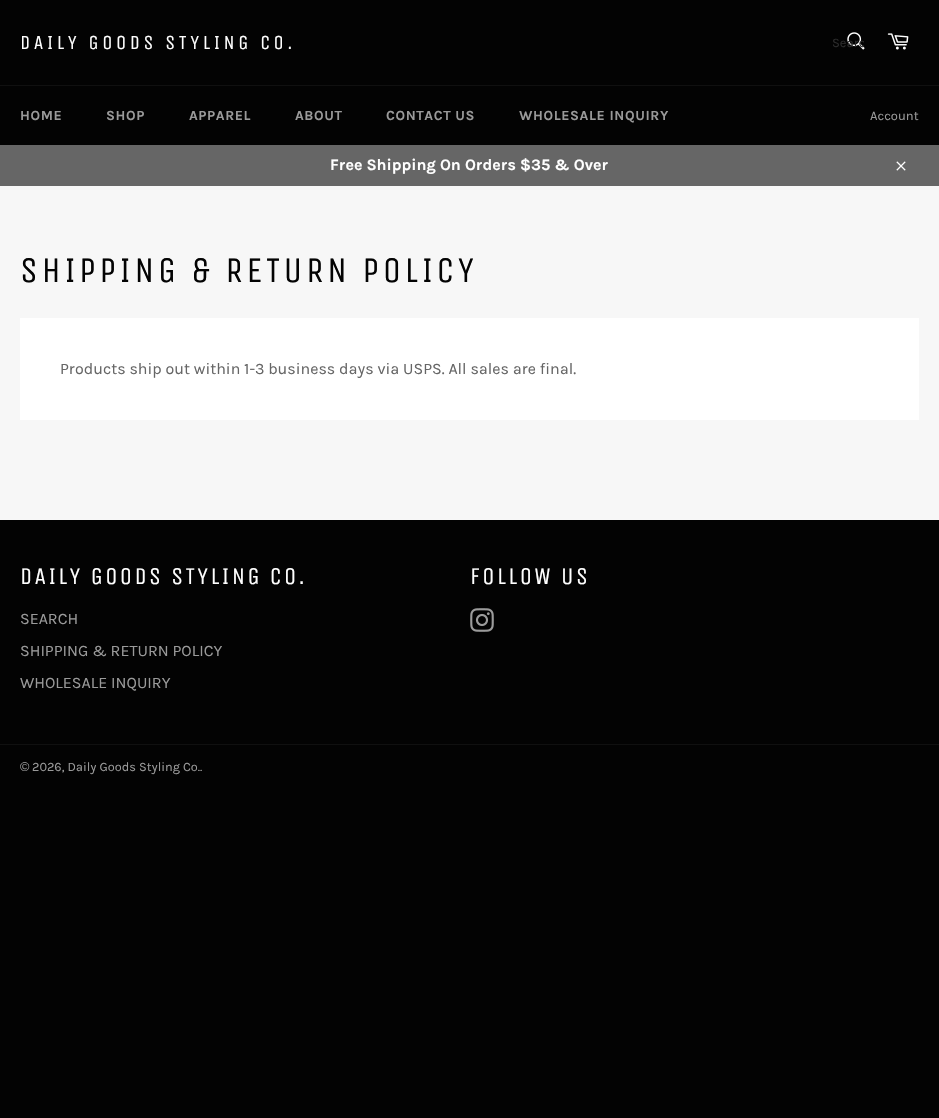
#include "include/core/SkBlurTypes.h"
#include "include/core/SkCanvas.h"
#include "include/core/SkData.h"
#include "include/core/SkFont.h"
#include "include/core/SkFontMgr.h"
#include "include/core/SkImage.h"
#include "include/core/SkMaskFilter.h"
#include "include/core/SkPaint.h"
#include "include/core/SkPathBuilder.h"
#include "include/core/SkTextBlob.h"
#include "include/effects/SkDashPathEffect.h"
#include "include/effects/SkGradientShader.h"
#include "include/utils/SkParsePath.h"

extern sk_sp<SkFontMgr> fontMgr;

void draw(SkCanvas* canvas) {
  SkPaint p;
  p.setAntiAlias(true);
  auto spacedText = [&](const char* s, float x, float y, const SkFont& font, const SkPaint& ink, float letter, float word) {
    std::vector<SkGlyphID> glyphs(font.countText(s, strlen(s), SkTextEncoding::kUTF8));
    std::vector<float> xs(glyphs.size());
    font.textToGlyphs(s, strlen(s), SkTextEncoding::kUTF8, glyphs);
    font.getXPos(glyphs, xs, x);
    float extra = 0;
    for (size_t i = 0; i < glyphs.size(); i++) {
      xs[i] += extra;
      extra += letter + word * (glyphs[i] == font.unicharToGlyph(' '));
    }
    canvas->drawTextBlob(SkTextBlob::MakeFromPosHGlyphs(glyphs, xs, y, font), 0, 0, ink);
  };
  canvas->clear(SkColorSetRGB(3, 3, 3));
  p.setColor(SkColorSetRGB(247, 247, 247));
  canvas->drawRect(SkRect::MakeLTRB(0, 186, 939, 520), p);
  canvas->drawImageRect(SkImages::DeferredFromEncodedData(SkData::MakeFromFileName("images/1.png")), SkRect::MakeLTRB(847, 32, 865, 50), SkSamplingOptions());
  canvas->drawImageRect(SkImages::DeferredFromEncodedData(SkData::MakeFromFileName("images/2.png")), SkRect::MakeLTRB(887, 33, 909, 50), SkSamplingOptions());
  p.setColor(SkColorSetRGB(16, 16, 16));
  canvas->drawRect(SkRect::MakeLTRB(0, 85, 939, 86), p);
  p.setColor(SkColorSetRGB(102, 102, 102));
  canvas->drawRect(SkRect::MakeLTRB(0, 145, 939, 186), p);
  canvas->drawImageRect(SkImages::DeferredFromEncodedData(SkData::MakeFromFileName("images/3.png")), SkRect::MakeLTRB(896, 161, 906, 171), SkSamplingOptions());
  p.setColor(SK_ColorWHITE);
  canvas->drawRect(SkRect::MakeLTRB(20, 318, 919, 420), p);
  canvas->drawImageRect(SkImages::DeferredFromEncodedData(SkData::MakeFromFileName("images/4.png")), SkRect::MakeLTRB(470, 608, 494, 632), SkSamplingOptions());
  p.setColor(SkColorSetRGB(16, 16, 16));
  canvas->drawRect(SkRect::MakeLTRB(0, 744, 939, 745), p);
  SkFont font1(fontMgr->matchFamilyStyle("Unica One", SkFontStyle::Normal()), 20);
  font1.setSubpixel(true);
  p.setColor(SK_ColorWHITE);
  spacedText("DAILY GOODS STYLING CO.", 20, 49, font1, p, 3.6f, 0);
  canvas->save();
  canvas->clipRect(SkRect::MakeLTRB(832, 35, 864, 50));
  SkFont font2(fontMgr->matchFamilyStyle("Karla", SkFontStyle::Normal()), 13);
  font2.setSubpixel(true);
  p.setColor(SkColorSetRGB(43, 43, 43));
  canvas->drawString("Searc", 832, 47, font2, p);
  canvas->restore();
  SkFont font3(fontMgr->matchFamilyStyle("Karla", SkFontStyle::Bold()), 14);
  font3.setSubpixel(true);
  p.setColor(SkColorSetRGB(154, 154, 154));
  spacedText("HOME", 20, 120, font3, p, 0.6f, 0);
  spacedText("SHOP", 106, 120, font3, p, 0.6f, 0);
  spacedText("APPAREL", 189, 120, font3, p, 0.6f, 0);
  spacedText("ABOUT", 295, 120, font3, p, 0.6f, 0);
  spacedText("CONTACT US", 386, 120, font3, p, 0.6f, 0);
  spacedText("WHOLESALE INQUIRY", 519, 120, font3, p, 0.6f, 0);
  canvas->drawString("Account", 870, 120, font2, p);
  SkFont font4(fontMgr->matchFamilyStyle("Karla", SkFontStyle::Bold()), 16);
  font4.setSubpixel(true);
  p.setColor(SK_ColorWHITE);
  canvas->drawString("Free Shipping On Orders $35 & Over", 330, 170, font4, p);
  SkFont font5(fontMgr->matchFamilyStyle("Unica One", SkFontStyle::Normal()), 36);
  font5.setSubpixel(true);
  p.setColor(SkColorSetRGB(3, 3, 3));
  spacedText("SHIPPING & RETURN POLICY", 20, 282, font5, p, 3.6f, 0);
  SkFont font6(fontMgr->matchFamilyStyle("Karla", SkFontStyle::Normal()), 16);
  font6.setSubpixel(true);
  p.setColor(SkColorSetRGB(102, 102, 102));
  canvas->drawString("Products ship out within 1-3 business days via USPS. All sales are final.", 60, 374, font6, p);
  SkFont font7(fontMgr->matchFamilyStyle("Unica One", SkFontStyle::Normal()), 24);
  font7.setSubpixel(true);
  p.setColor(SK_ColorWHITE);
  spacedText("DAILY GOODS STYLING CO.", 20, 584, font7, p, 2.4f, 0);
  p.setColor(SkColorSetRGB(154, 154, 154));
  canvas->drawString("SEARCH", 20, 624, font6, p);
  canvas->drawString("SHIPPING & RETURN POLICY", 20, 656, font6, p);
  canvas->drawString("WHOLESALE INQUIRY", 20, 688, font6, p);
  p.setColor(SK_ColorWHITE);
  spacedText("FOLLOW US", 470, 584, font7, p, 2.4f, 0);
  SkFont font8(fontMgr->matchFamilyStyle("Liberation Sans", SkFontStyle::Normal()), 12.75f);
  font8.setSubpixel(true);
  p.setColor(SkColorSetRGB(154, 154, 154));
  canvas->drawString("©", 20, 771, font8, p);
  SkFont font9(fontMgr->matchFamilyStyle("Karla", SkFontStyle::Normal()), 12.75f);
  font9.setSubpixel(true);
  canvas->drawString("2026, Daily Goods Styling Co..", 32, 771, font9, p);
}
